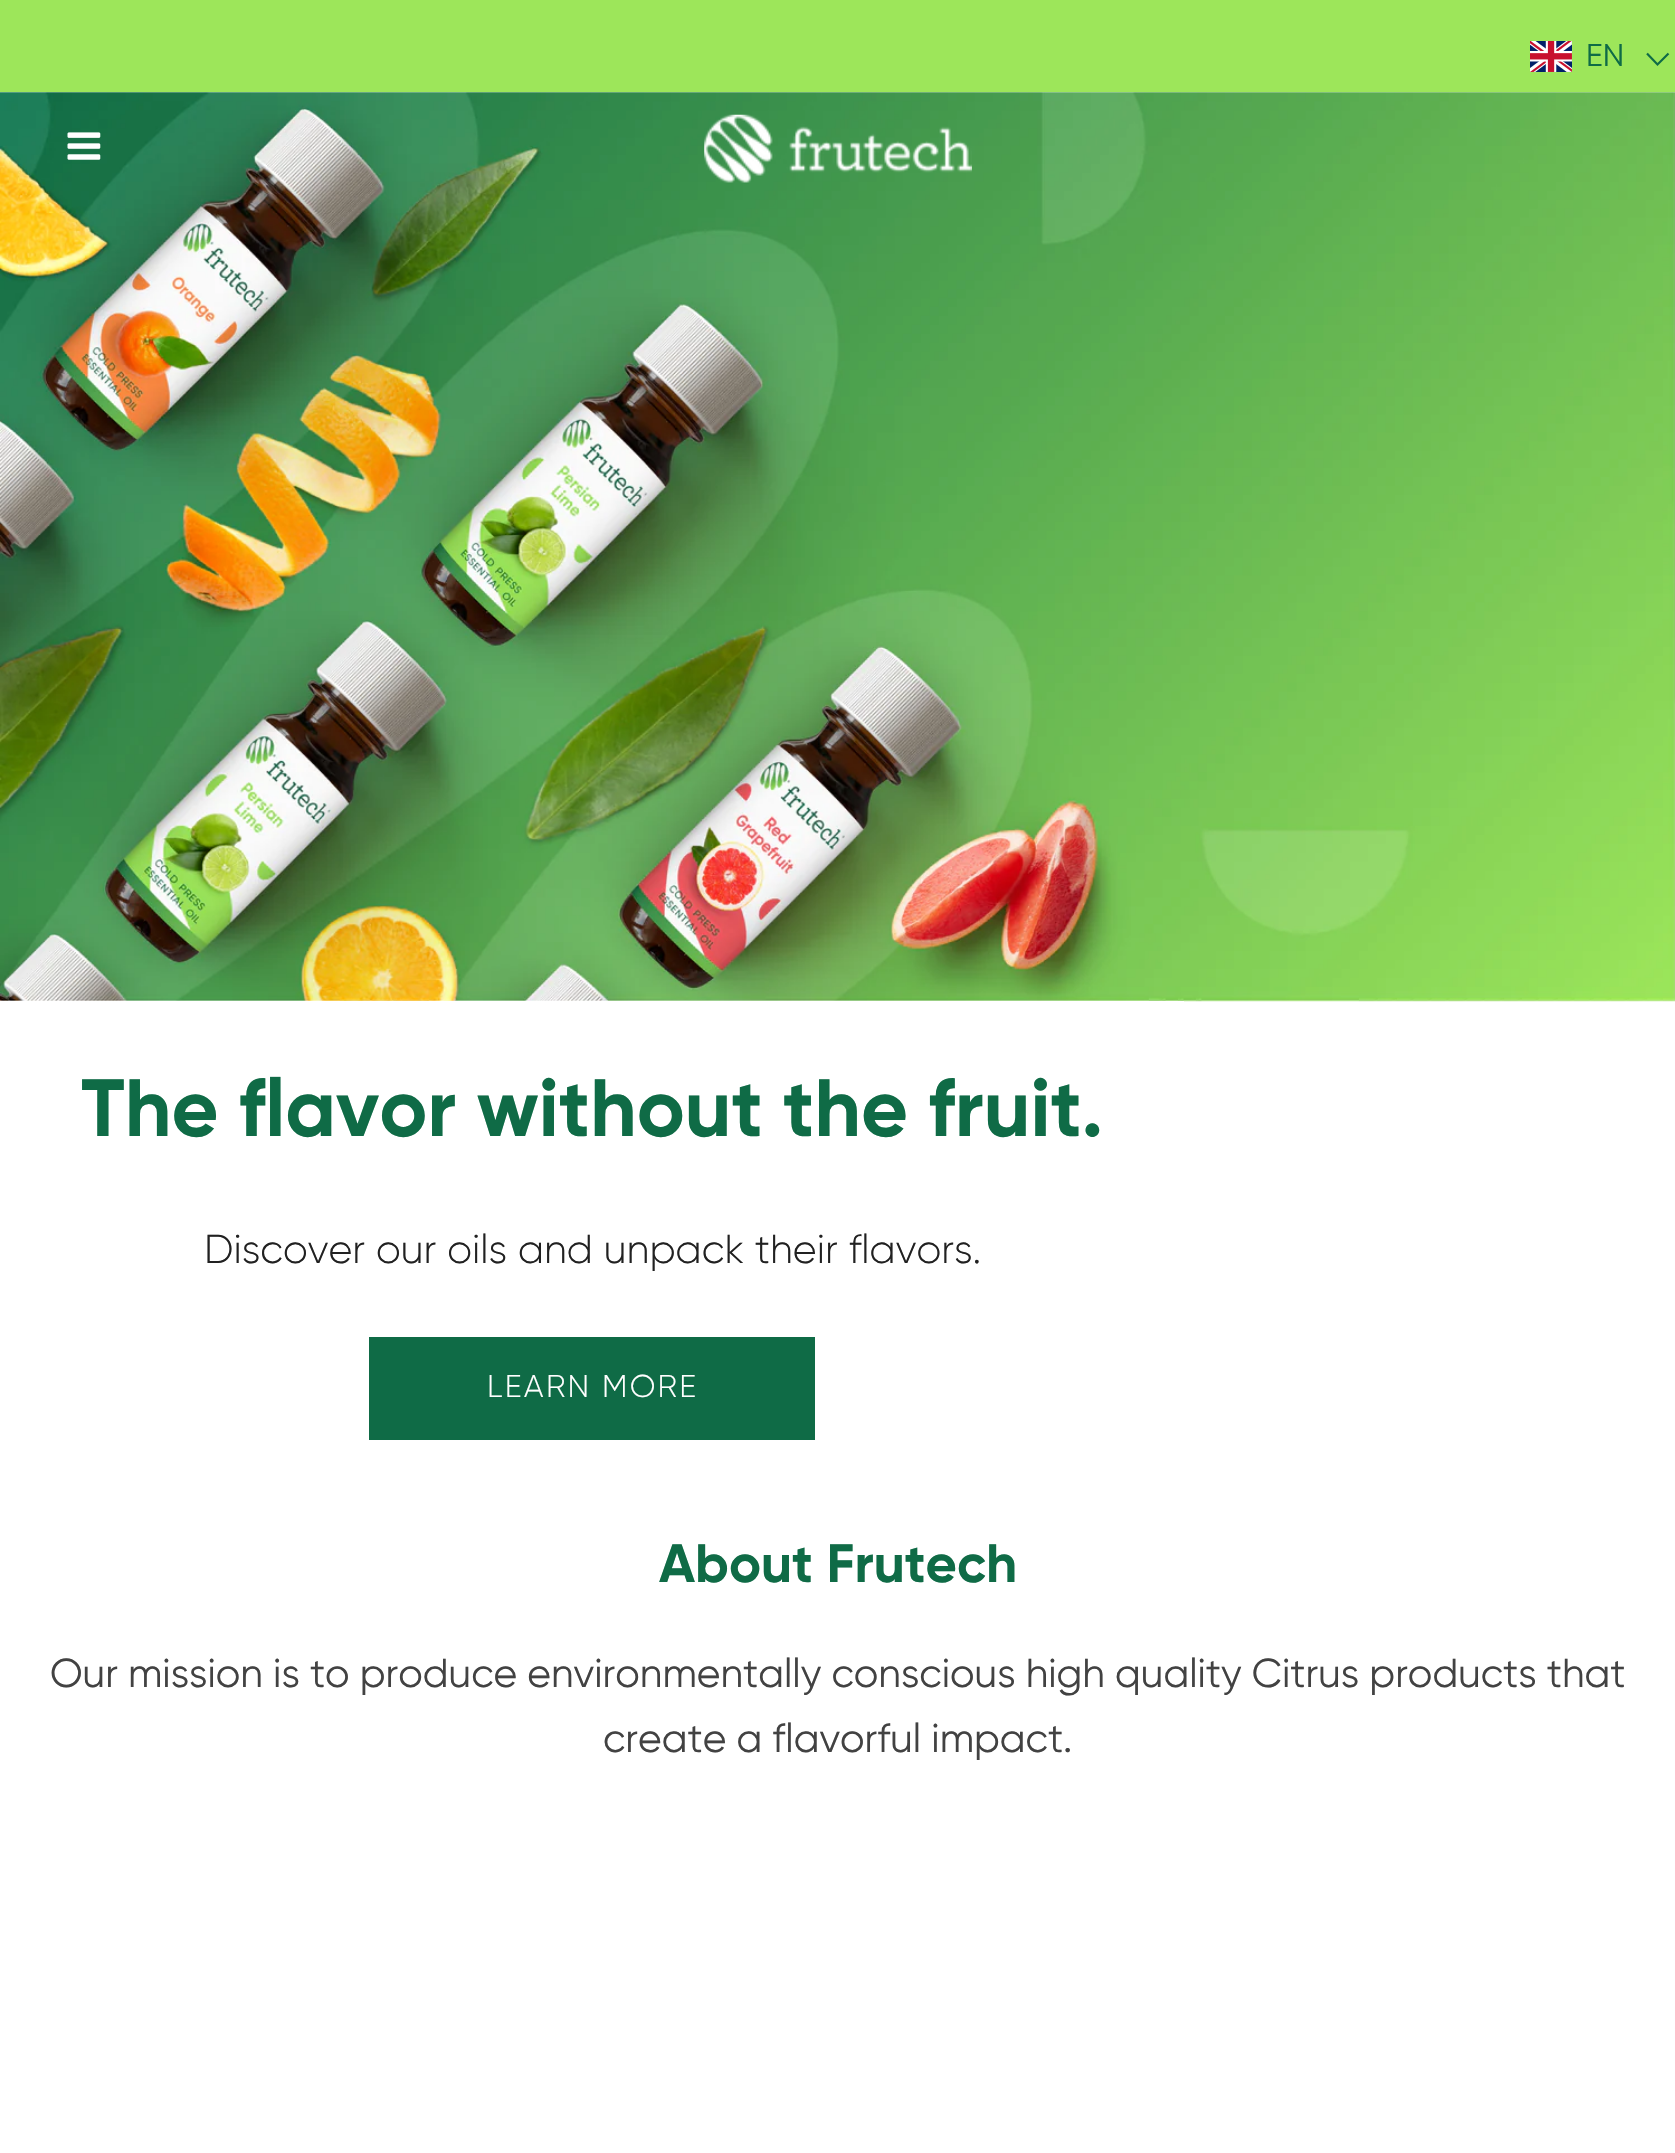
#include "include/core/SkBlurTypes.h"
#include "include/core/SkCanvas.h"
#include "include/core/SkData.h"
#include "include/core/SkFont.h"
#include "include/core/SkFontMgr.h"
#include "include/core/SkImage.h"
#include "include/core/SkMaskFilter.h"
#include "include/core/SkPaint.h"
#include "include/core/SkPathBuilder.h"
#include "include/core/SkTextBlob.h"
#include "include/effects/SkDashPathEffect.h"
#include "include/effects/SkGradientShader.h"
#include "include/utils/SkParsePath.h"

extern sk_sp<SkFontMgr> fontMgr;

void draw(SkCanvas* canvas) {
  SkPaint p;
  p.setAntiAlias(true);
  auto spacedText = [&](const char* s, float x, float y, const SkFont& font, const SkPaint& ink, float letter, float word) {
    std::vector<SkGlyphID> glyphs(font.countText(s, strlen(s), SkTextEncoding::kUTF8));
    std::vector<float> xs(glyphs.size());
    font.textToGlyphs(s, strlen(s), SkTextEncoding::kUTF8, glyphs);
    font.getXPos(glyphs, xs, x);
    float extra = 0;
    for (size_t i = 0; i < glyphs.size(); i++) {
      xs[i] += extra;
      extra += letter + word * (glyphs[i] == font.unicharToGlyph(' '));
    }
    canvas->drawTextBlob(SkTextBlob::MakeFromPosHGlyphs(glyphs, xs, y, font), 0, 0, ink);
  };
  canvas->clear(SK_ColorWHITE);
  p.setColor(SkColorSetRGB(157, 230, 90));
  canvas->drawRect(SkRect::MakeLTRB(0, 0, 1675, 92), p);
  canvas->drawImageRect(SkImages::DeferredFromEncodedData(SkData::MakeFromFileName("images/1.png")), SkRect::MakeLTRB(1530, 41, 1572, 72), SkSamplingOptions());
  p.setStyle(SkPaint::kStroke_Style);
  p.setStrokeWidth(2.2f);
  p.setColor(SkColorSetRGB(15, 107, 70));
  canvas->drawPath(SkPathBuilder().moveTo(1647, 53.5f).lineTo(1657.5f, 64.5f).lineTo(1668.5f, 53.5f).detach(), p);
  canvas->drawImageRect(SkImages::DeferredFromEncodedData(SkData::MakeFromFileName("images/4.png")), SkRect::MakeLTRB(0, 92, 1675, 1002), SkSamplingOptions());
  canvas->drawImageRect(SkImages::DeferredFromEncodedData(SkData::MakeFromFileName("images/2.png")), SkRect::MakeLTRB(67, 132, 101, 160), SkSamplingOptions());
  canvas->drawImageRect(SkImages::DeferredFromEncodedData(SkData::MakeFromFileName("images/3.png")), SkRect::MakeLTRB(704, 114, 972, 183), SkSamplingOptions());
  p.setStyle(SkPaint::kFill_Style);
  p.setColor(SK_ColorWHITE);
  canvas->drawRect(SkRect::MakeLTRB(0, 1001, 1184, 1002), p);
  p.setColor(SkColorSetRGB(15, 107, 70));
  canvas->drawRect(SkRect::MakeLTRB(369, 1337, 815, 1440), p);
  SkFont font1(fontMgr->matchFamilyStyle("Gilroy", SkFontStyle::Normal()), 31.5f);
  font1.setSubpixel(true);
  canvas->drawString("EN", 1586, 66, font1, p);
  SkFont font2(fontMgr->matchFamilyStyle("Gilroy", SkFontStyle::Bold()), 81);
  font2.setSubpixel(true);
  canvas->drawString("The flavor without the fruit.", 81, 1136, font2, p);
  SkFont font3(fontMgr->matchFamilyStyle("Gilroy", SkFontStyle(300, SkFontStyle::kNormal_Width, SkFontStyle::kUpright_Slant)), 40.5f);
  font3.setSubpixel(true);
  p.setColor(SkColorSetRGB(33, 33, 33));
  canvas->drawString("Discover our oils and unpack their flavors.", 204, 1263, font3, p);
  SkFont font4(fontMgr->matchFamilyStyle("Gilroy", SkFontStyle(300, SkFontStyle::kNormal_Width, SkFontStyle::kUpright_Slant)), 31.5f);
  font4.setSubpixel(true);
  p.setColor(SK_ColorWHITE);
  spacedText("LEARN MORE", 487, 1397, font4, p, 2.25f, 0);
  SkFont font5(fontMgr->matchFamilyStyle("Gilroy", SkFontStyle::Bold()), 54);
  font5.setSubpixel(true);
  p.setColor(SkColorSetRGB(15, 107, 70));
  canvas->drawString("About Frutech", 659, 1582, font5, p);
  SkFont font6(fontMgr->matchFamilyStyle("Gilroy", SkFontStyle::Normal()), 40.5f);
  font6.setSubpixel(true);
  p.setColor(SkColorSetRGB(66, 66, 66));
  canvas->drawString("Our mission is to produce environmentally conscious high quality Citrus products that", 50, 1687, font6, p);
  canvas->drawString("create a flavorful impact.", 603, 1752, font6, p);
}
